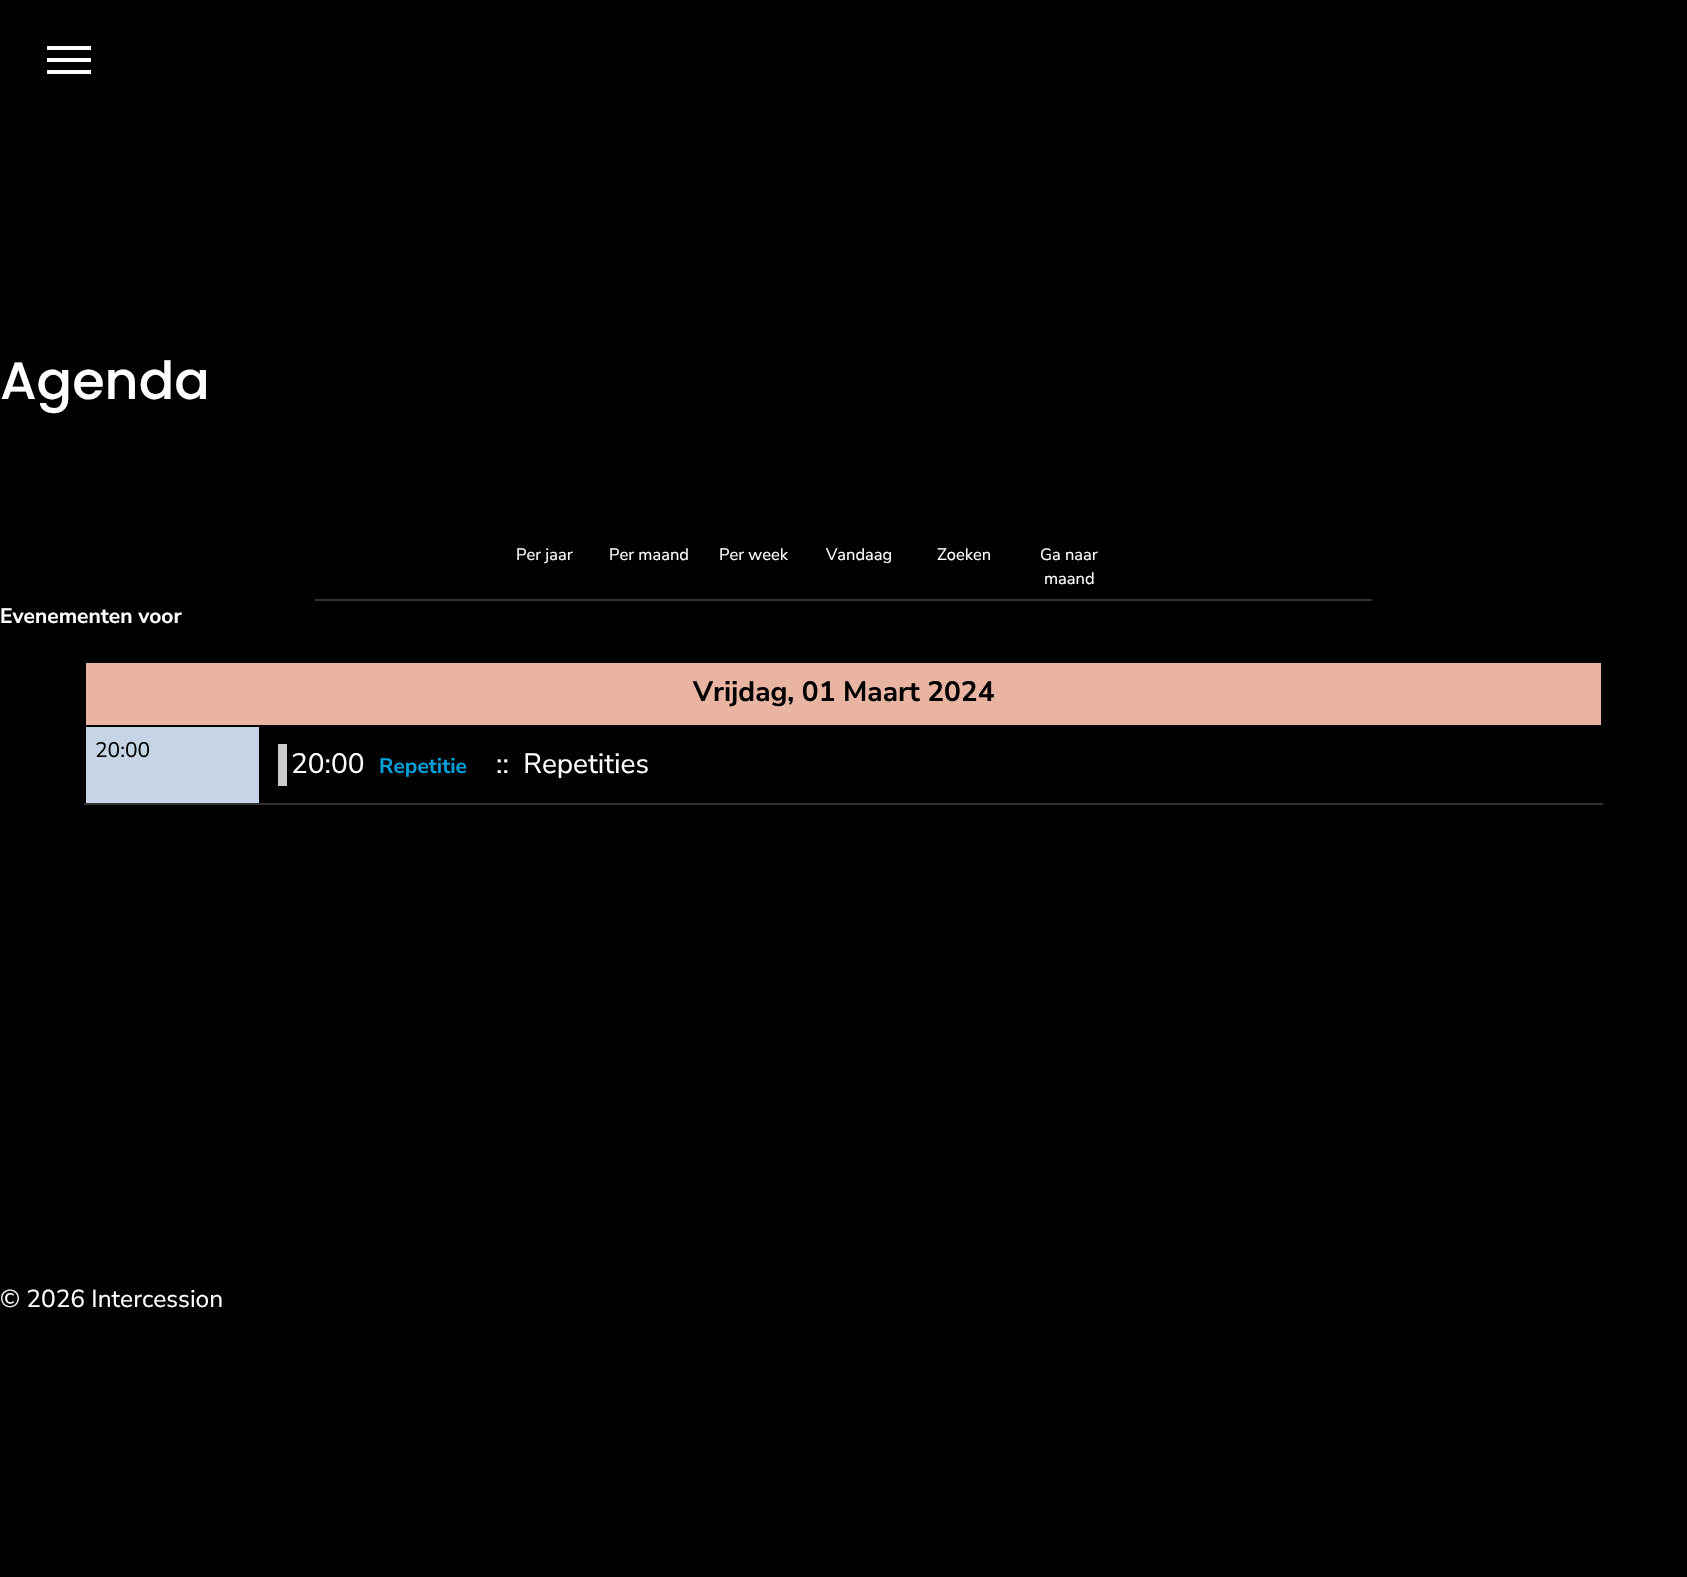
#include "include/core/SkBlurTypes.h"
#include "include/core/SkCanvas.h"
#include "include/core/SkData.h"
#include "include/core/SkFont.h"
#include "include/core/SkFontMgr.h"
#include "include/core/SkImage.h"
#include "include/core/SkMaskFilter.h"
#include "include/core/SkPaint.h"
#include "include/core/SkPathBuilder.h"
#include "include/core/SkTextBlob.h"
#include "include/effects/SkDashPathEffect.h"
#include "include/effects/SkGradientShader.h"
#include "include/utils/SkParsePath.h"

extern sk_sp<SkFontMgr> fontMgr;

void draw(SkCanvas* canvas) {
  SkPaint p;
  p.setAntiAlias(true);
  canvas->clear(SK_ColorBLACK);
  p.setColor(SK_ColorWHITE);
  canvas->drawRect(SkRect::MakeLTRB(47, 46, 91, 50), p);
  canvas->drawRect(SkRect::MakeLTRB(47, 58, 91, 62), p);
  canvas->drawRect(SkRect::MakeLTRB(47, 70, 91, 74), p);
  p.setColor(SkColorSetRGB(51, 51, 51));
  canvas->drawRect(SkRect::MakeLTRB(315, 599, 1372, 601), p);
  canvas->drawRect(SkRect::MakeLTRB(84, 803, 1603, 805), p);
  p.setColor(SkColorSetRGB(233, 180, 161));
  canvas->drawRect(SkRect::MakeLTRB(86, 663, 1601, 725), p);
  p.setColor(SkColorSetRGB(197, 213, 229));
  canvas->drawRect(SkRect::MakeLTRB(86, 727, 259, 803), p);
  p.setColor(SkColorSetRGB(204, 204, 204));
  canvas->drawRect(SkRect::MakeLTRB(278, 744, 287, 786), p);
  SkFont font1(fontMgr->matchFamilyStyle("Poppins", SkFontStyle(500, SkFontStyle::kNormal_Width, SkFontStyle::kUpright_Slant)), 52.5f);
  font1.setSubpixel(true);
  p.setColor(SK_ColorWHITE);
  canvas->drawString("Agenda", 0, 399, font1, p);
  SkFont font2(fontMgr->matchFamilyStyle("Nunito Sans", SkFontStyle::Normal()), 16.5f);
  font2.setSubpixel(true);
  canvas->drawString("Per jaar", 516, 560, font2, p);
  canvas->drawString("Per maand", 609, 560, font2, p);
  canvas->drawString("Per week", 719, 560, font2, p);
  canvas->drawString("Vandaag", 826, 560, font2, p);
  canvas->drawString("Zoeken", 937, 560, font2, p);
  canvas->drawString("Ga naar", 1040, 560, font2, p);
  canvas->drawString("maand", 1044, 584, font2, p);
  SkFont font3(fontMgr->matchFamilyStyle("Nunito Sans", SkFontStyle::Bold()), 21);
  font3.setSubpixel(true);
  canvas->drawString("Evenementen voor", 0, 623, font3, p);
  SkFont font4(fontMgr->matchFamilyStyle("Nunito Sans", SkFontStyle::Bold()), 28);
  font4.setSubpixel(true);
  p.setColor(SK_ColorBLACK);
  canvas->drawString("Vrijdag, 01 Maart 2024", 693, 701, font4, p);
  SkFont font5(fontMgr->matchFamilyStyle("Nunito Sans", SkFontStyle::Normal()), 21);
  font5.setSubpixel(true);
  canvas->drawString("20:00", 95, 757, font5, p);
  SkFont font6(fontMgr->matchFamilyStyle("Nunito Sans", SkFontStyle::Normal()), 28);
  font6.setSubpixel(true);
  p.setColor(SK_ColorWHITE);
  canvas->drawString("20:00", 291, 773, font6, p);
  p.setColor(SkColorSetRGB(0, 160, 222));
  canvas->drawString("Repetitie", 379, 773, font3, p);
  p.setColor(SK_ColorWHITE);
  canvas->drawString("::  Repetities", 496, 773, font6, p);
  SkFont font7(fontMgr->matchFamilyStyle("Nunito Sans", SkFontStyle::Normal()), 24.5f);
  font7.setSubpixel(true);
  canvas->drawString("© 2026 Intercession", 0, 1307, font7, p);
}
